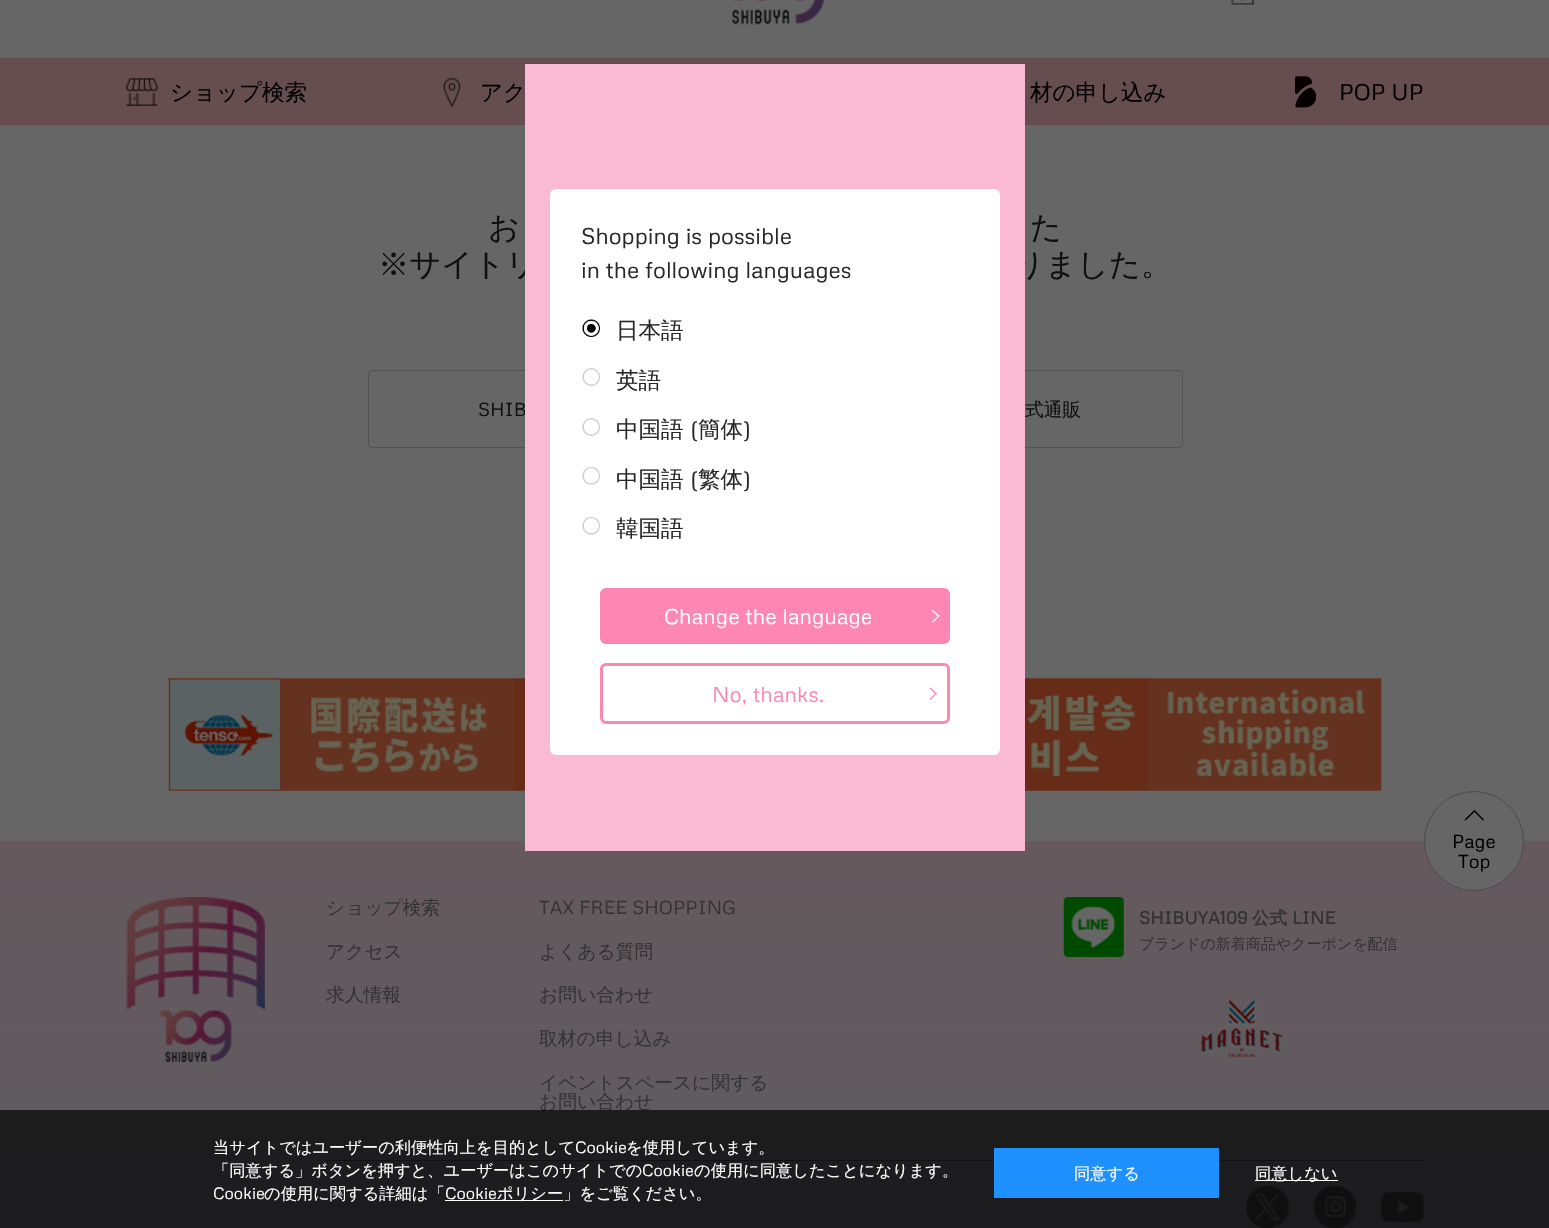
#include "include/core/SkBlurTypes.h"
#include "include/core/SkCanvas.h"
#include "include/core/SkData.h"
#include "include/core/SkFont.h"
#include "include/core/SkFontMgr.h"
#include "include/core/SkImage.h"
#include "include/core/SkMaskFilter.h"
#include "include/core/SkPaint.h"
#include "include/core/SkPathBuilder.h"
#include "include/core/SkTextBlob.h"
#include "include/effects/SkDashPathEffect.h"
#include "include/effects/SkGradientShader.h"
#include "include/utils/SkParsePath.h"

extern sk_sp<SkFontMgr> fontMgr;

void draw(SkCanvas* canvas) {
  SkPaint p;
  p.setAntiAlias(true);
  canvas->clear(SkColorSetRGB(102, 102, 102));
  canvas->drawImageRect(SkImages::DeferredFromEncodedData(SkData::MakeFromFileName("images/1.png")), SkRect::MakeLTRB(732, 0, 825, 25), SkSamplingOptions());
  canvas->drawImageRect(SkImages::DeferredFromEncodedData(SkData::MakeFromFileName("images/2.png")), SkRect::MakeLTRB(1231, 0, 1254, 5), SkSamplingOptions());
  p.setColor(SkColorSetRGB(102, 77, 80));
  canvas->drawRect(SkRect::MakeLTRB(0, 58, 1549, 125), p);
  canvas->drawImageRect(SkImages::DeferredFromEncodedData(SkData::MakeFromFileName("images/3.png")), SkRect::MakeLTRB(126, 78, 158, 106), SkSamplingOptions());
  canvas->drawImageRect(SkImages::DeferredFromEncodedData(SkData::MakeFromFileName("images/4.png")), SkRect::MakeLTRB(443, 78, 461, 107), SkSamplingOptions());
  canvas->drawImageRect(SkImages::DeferredFromEncodedData(SkData::MakeFromFileName("images/5.png")), SkRect::MakeLTRB(1295, 76, 1316, 108), SkSamplingOptions());
  p.setStyle(SkPaint::kStroke_Style);
  p.setStrokeWidth(1);
  p.setColor(SkColorSetRGB(82, 82, 82));
  canvas->drawRoundRect(SkRect::MakeLTRB(368.5f, 370.5f, 759.5f, 447.5f), 3.5f, 3.5f, p);
  canvas->drawRoundRect(SkRect::MakeLTRB(790.5f, 370.5f, 1182.5f, 447.5f), 3.5f, 3.5f, p);
  canvas->drawImageRect(SkImages::DeferredFromEncodedData(SkData::MakeFromFileName("images/10.png")), SkRect::MakeLTRB(168, 678, 1382, 791), SkSamplingOptions());
  p.setStyle(SkPaint::kFill_Style);
  {
    const SkColor colors[] = {SkColorSetRGB(101, 89, 93), SkColorSetRGB(92, 93, 100)};
    const float stops[] = {0, 1};
    const SkPoint ends[] = {{775, 841}, {775, 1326}};
    p.setShader(SkGradientShader::MakeLinear(ends, colors, stops, 2, SkTileMode::kClamp));
    p.setAlpha(255);
  }
  canvas->drawRect(SkRect::MakeLTRB(0, 841, 1549, 1228), p);
  p.setShader(nullptr);
  p.setColor(SkColorSetRGB(102, 102, 102));
  canvas->drawCircle(1474, 841, 49.5f, p);
  p.setStyle(SkPaint::kStroke_Style);
  p.setColor(SkColorSetRGB(75, 75, 75));
  canvas->drawCircle(1474, 841, 49.5f, p);
  p.setStyle(SkPaint::kFill_Style);
  p.setColor(SK_ColorBLACK);
  canvas->drawPath(SkPathBuilder().moveTo(1465.5f, 820.5f).lineTo(1464.5f, 819.5f).lineTo(1474.5f, 810).lineTo(1475.5f, 811).close().detach(), p);
  canvas->drawPath(SkPathBuilder().moveTo(1483, 820.5f).lineTo(1473.5f, 811).lineTo(1474.5f, 810).lineTo(1484, 819.5f).close().detach(), p);
  canvas->drawImageRect(SkImages::DeferredFromEncodedData(SkData::MakeFromFileName("images/11.png")), SkRect::MakeLTRB(126, 897, 265, 1062), SkSamplingOptions());
  p.setColor(SkColorSetRGB(62, 59, 60));
  canvas->drawRect(SkRect::MakeLTRB(326, 1160, 1424, 1161), p);
  canvas->drawImageRect(SkImages::DeferredFromEncodedData(SkData::MakeFromFileName("images/12.png")), SkRect::MakeLTRB(1063, 897, 1124, 957), SkSamplingOptions());
  canvas->drawImageRect(SkImages::DeferredFromEncodedData(SkData::MakeFromFileName("images/13.png")), SkRect::MakeLTRB(1201, 999, 1283, 1058), SkSamplingOptions());
  canvas->drawImageRect(SkImages::DeferredFromEncodedData(SkData::MakeFromFileName("images/14.png")), SkRect::MakeLTRB(1246, 1185, 1289, 1228), SkSamplingOptions());
  canvas->drawImageRect(SkImages::DeferredFromEncodedData(SkData::MakeFromFileName("images/15.png")), SkRect::MakeLTRB(1313, 1185, 1357, 1228), SkSamplingOptions());
  canvas->drawImageRect(SkImages::DeferredFromEncodedData(SkData::MakeFromFileName("images/16.png")), SkRect::MakeLTRB(1381, 1191, 1424, 1223), SkSamplingOptions());
  SkFont font1(fontMgr->matchFamilyStyle("WenQuanYi Zen Hei", SkFontStyle(500, SkFontStyle::kNormal_Width, SkFontStyle::kUpright_Slant)), 22.5f);
  font1.setSubpixel(true);
  p.setColor(SK_ColorBLACK);
  canvas->drawString("ショップ検索", 170, 100, font1, p);
  canvas->drawString("アク", 480, 100, font1, p);
  canvas->drawString("材の申し込み", 1030, 100, font1, p);
  SkFont font2(fontMgr->matchFamilyStyle("Metrophobic", SkFontStyle::Normal()), 22.5f);
  font2.setSubpixel(true);
  canvas->drawString("POP UP", 1339, 100, font2, p);
  SkFont font3(fontMgr->matchFamilyStyle("WenQuanYi Zen Hei", SkFontStyle(500, SkFontStyle::kNormal_Width, SkFontStyle::kUpright_Slant)), 31.25f);
  font3.setSubpixel(true);
  p.setColor(SkColorSetRGB(16, 16, 16));
  canvas->drawString("お", 488, 238, font3, p);
  canvas->drawString("た", 1030, 238, font3, p);
  canvas->drawString("※サイトリ", 378, 275, font3, p);
  canvas->drawString("りました。", 1013, 275, font3, p);
  SkFont font4(fontMgr->matchFamilyStyle("Metrophobic", SkFontStyle::Normal()), 18.75f);
  font4.setSubpixel(true);
  canvas->drawString("SHIB", 478, 416, font4, p);
  SkFont font5(fontMgr->matchFamilyStyle("WenQuanYi Zen Hei", SkFontStyle(500, SkFontStyle::kNormal_Width, SkFontStyle::kUpright_Slant)), 18.75f);
  font5.setSubpixel(true);
  canvas->drawString("式通販", 1025, 416, font5, p);
  p.setColor(SkColorSetRGB(251, 186, 211));
  canvas->drawRect(SkRect::MakeLTRB(525, 64, 1025, 851), p);
  p.setColor(SK_ColorWHITE);
  canvas->drawRoundRect(SkRect::MakeLTRB(550, 189, 1000, 755), 6, 6, p);
  p.setColor(SkColorSetRGB(39, 39, 39));
  canvas->drawString("Shopping is possible", 581, 244, font2, p);
  canvas->drawString("in the following languages", 581, 278, font2, p);
  canvas->drawImageRect(SkImages::DeferredFromEncodedData(SkData::MakeFromFileName("images/6.png")), SkRect::MakeLTRB(582, 319, 600, 337), SkSamplingOptions());
  canvas->drawString("日本語", 616, 338, font1, p);
  canvas->drawImageRect(SkImages::DeferredFromEncodedData(SkData::MakeFromFileName("images/7.png")), SkRect::MakeLTRB(582, 368, 600, 386), SkSamplingOptions());
  canvas->drawString("英語", 616, 388, font1, p);
  canvas->drawImageRect(SkImages::DeferredFromEncodedData(SkData::MakeFromFileName("images/8.png")), SkRect::MakeLTRB(582, 418, 600, 436), SkSamplingOptions());
  canvas->drawString("中国語", 616, 437, font1, p);
  canvas->drawString("(", 690, 437, font2, p);
  canvas->drawString("簡体", 698, 437, font1, p);
  canvas->drawString(")", 743, 437, font2, p);
  canvas->drawImageRect(SkImages::DeferredFromEncodedData(SkData::MakeFromFileName("images/9.png")), SkRect::MakeLTRB(582, 467, 600, 485), SkSamplingOptions());
  canvas->drawString("中国語", 616, 487, font1, p);
  canvas->drawString("(", 690, 487, font2, p);
  canvas->drawString("繁体", 698, 487, font1, p);
  canvas->drawString(")", 743, 487, font2, p);
  canvas->drawImageRect(SkImages::DeferredFromEncodedData(SkData::MakeFromFileName("images/9.png")), SkRect::MakeLTRB(582, 517, 600, 535), SkSamplingOptions());
  canvas->drawString("韓国語", 616, 536, font1, p);
  p.setColor(SkColorSetRGB(253, 135, 178));
  canvas->drawRoundRect(SkRect::MakeLTRB(600, 588, 950, 644), 6, 6, p);
  SkFont font6(fontMgr->matchFamilyStyle("Metrophobic", SkFontStyle::Normal()), 21.25f);
  font6.setSubpixel(true);
  p.setColor(SK_ColorWHITE);
  canvas->drawString("Change the language", 664, 624, font6, p);
  canvas->drawPath(SkPathBuilder().moveTo(933, 610).lineTo(939.5f, 616).lineTo(938.5f, 617).lineTo(932, 611).close().detach(), p);
  canvas->drawPath(SkPathBuilder().moveTo(938.5f, 615.5f).lineTo(939.5f, 616).lineTo(933, 622.5f).lineTo(932, 621.5f).close().detach(), p);
  p.setStyle(SkPaint::kStroke_Style);
  p.setStrokeWidth(3);
  p.setColor(SkColorSetRGB(253, 135, 178));
  canvas->drawRoundRect(SkRect::MakeLTRB(601.5f, 664.5f, 948.5f, 722.5f), 4.5f, 4.5f, p);
  p.setStyle(SkPaint::kFill_Style);
  canvas->drawString("No, thanks.", 712, 702, font6, p);
  canvas->drawPath(SkPathBuilder().moveTo(930.5f, 687.5f).lineTo(937, 693.5f).lineTo(936, 694.5f).lineTo(929.5f, 688.5f).close().detach(), p);
  canvas->drawPath(SkPathBuilder().moveTo(936, 693).lineTo(937, 693.5f).lineTo(930.5f, 700).lineTo(929.5f, 699).close().detach(), p);
  p.setColor(SK_ColorBLACK);
  canvas->drawString("Page", 1452, 848, font4, p);
  canvas->drawString("Top", 1458, 868, font4, p);
  p.setColor(SkColorSetRGB(52, 52, 52));
  canvas->drawString("ショップ検索", 326, 914, font5, p);
  canvas->drawString("アクセス", 326, 958, font5, p);
  canvas->drawString("求人情報", 326, 1001, font5, p);
  canvas->drawString("TAX FREE SHOPPING", 539, 914, font4, p);
  canvas->drawString("よくある質問", 539, 958, font5, p);
  canvas->drawString("お問い合わせ", 539, 1001, font5, p);
  canvas->drawString("取材の申し込み", 539, 1045, font5, p);
  canvas->drawString("イベントスペースに関する", 539, 1089, font5, p);
  canvas->drawString("お問い合わせ", 539, 1108, font5, p);
  SkFont font7(fontMgr->matchFamilyStyle("Metrophobic", SkFontStyle::Bold()), 17.5f);
  font7.setSubpixel(true);
  canvas->drawString("SHIBUYA109", 1139, 924, font7, p);
  SkFont font8(fontMgr->matchFamilyStyle("WenQuanYi Zen Hei", SkFontStyle::Bold()), 17.5f);
  font8.setSubpixel(true);
  canvas->drawString("公式", 1252, 924, font8, p);
  canvas->drawString("LINE", 1292, 924, font7, p);
  SkFont font9(fontMgr->matchFamilyStyle("WenQuanYi Zen Hei", SkFontStyle(500, SkFontStyle::kNormal_Width, SkFontStyle::kUpright_Slant)), 15);
  font9.setSubpixel(true);
  canvas->drawString("ブランドの新着商品やクーポンを配信", 1139, 949, font9, p);
  p.setColor(SkColorSetARGB(179, 0, 0, 0));
  canvas->drawRect(SkRect::MakeLTRB(0, 1110, 1549, 1228), p);
  SkFont font10(fontMgr->matchFamilyStyle("WenQuanYi Zen Hei", SkFontStyle(500, SkFontStyle::kNormal_Width, SkFontStyle::kUpright_Slant)), 16.25f);
  font10.setSubpixel(true);
  p.setColor(SK_ColorWHITE);
  canvas->drawString("当サイトではユーザーの利便性向上を目的として", 213, 1153, font10, p);
  SkFont font11(fontMgr->matchFamilyStyle("Metrophobic", SkFontStyle::Normal()), 16.25f);
  font11.setSubpixel(true);
  canvas->drawString("Cookie", 575, 1153, font11, p);
  canvas->drawString("を使用しています。", 626, 1153, font10, p);
  canvas->drawString("「同意する」ボタンを押すと、ユーザーはこのサイトでの", 213, 1176, font10, p);
  canvas->drawString("Cookie", 642, 1176, font11, p);
  canvas->drawString("の使用に同意したことになります。", 694, 1176, font10, p);
  canvas->drawString("Cookie", 213, 1199, font11, p);
  canvas->drawString("の使用に関する詳細は「", 264, 1199, font10, p);
  canvas->drawString("Cookie", 445, 1199, font11, p);
  canvas->drawRect(SkRect::MakeLTRB(445, 1200, 563, 1201), p);
  canvas->drawString("ポリシー」をご覧ください。", 497, 1199, font10, p);
  p.setColor(SkColorSetRGB(30, 144, 255));
  canvas->drawRect(SkRect::MakeLTRB(994, 1148, 1219, 1198), p);
  p.setColor(SK_ColorWHITE);
  canvas->drawString("同意する", 1074, 1179, font10, p);
  canvas->drawRect(SkRect::MakeLTRB(1255, 1180, 1338, 1181), p);
  canvas->drawString("同意しない", 1255, 1179, font10, p);
}
